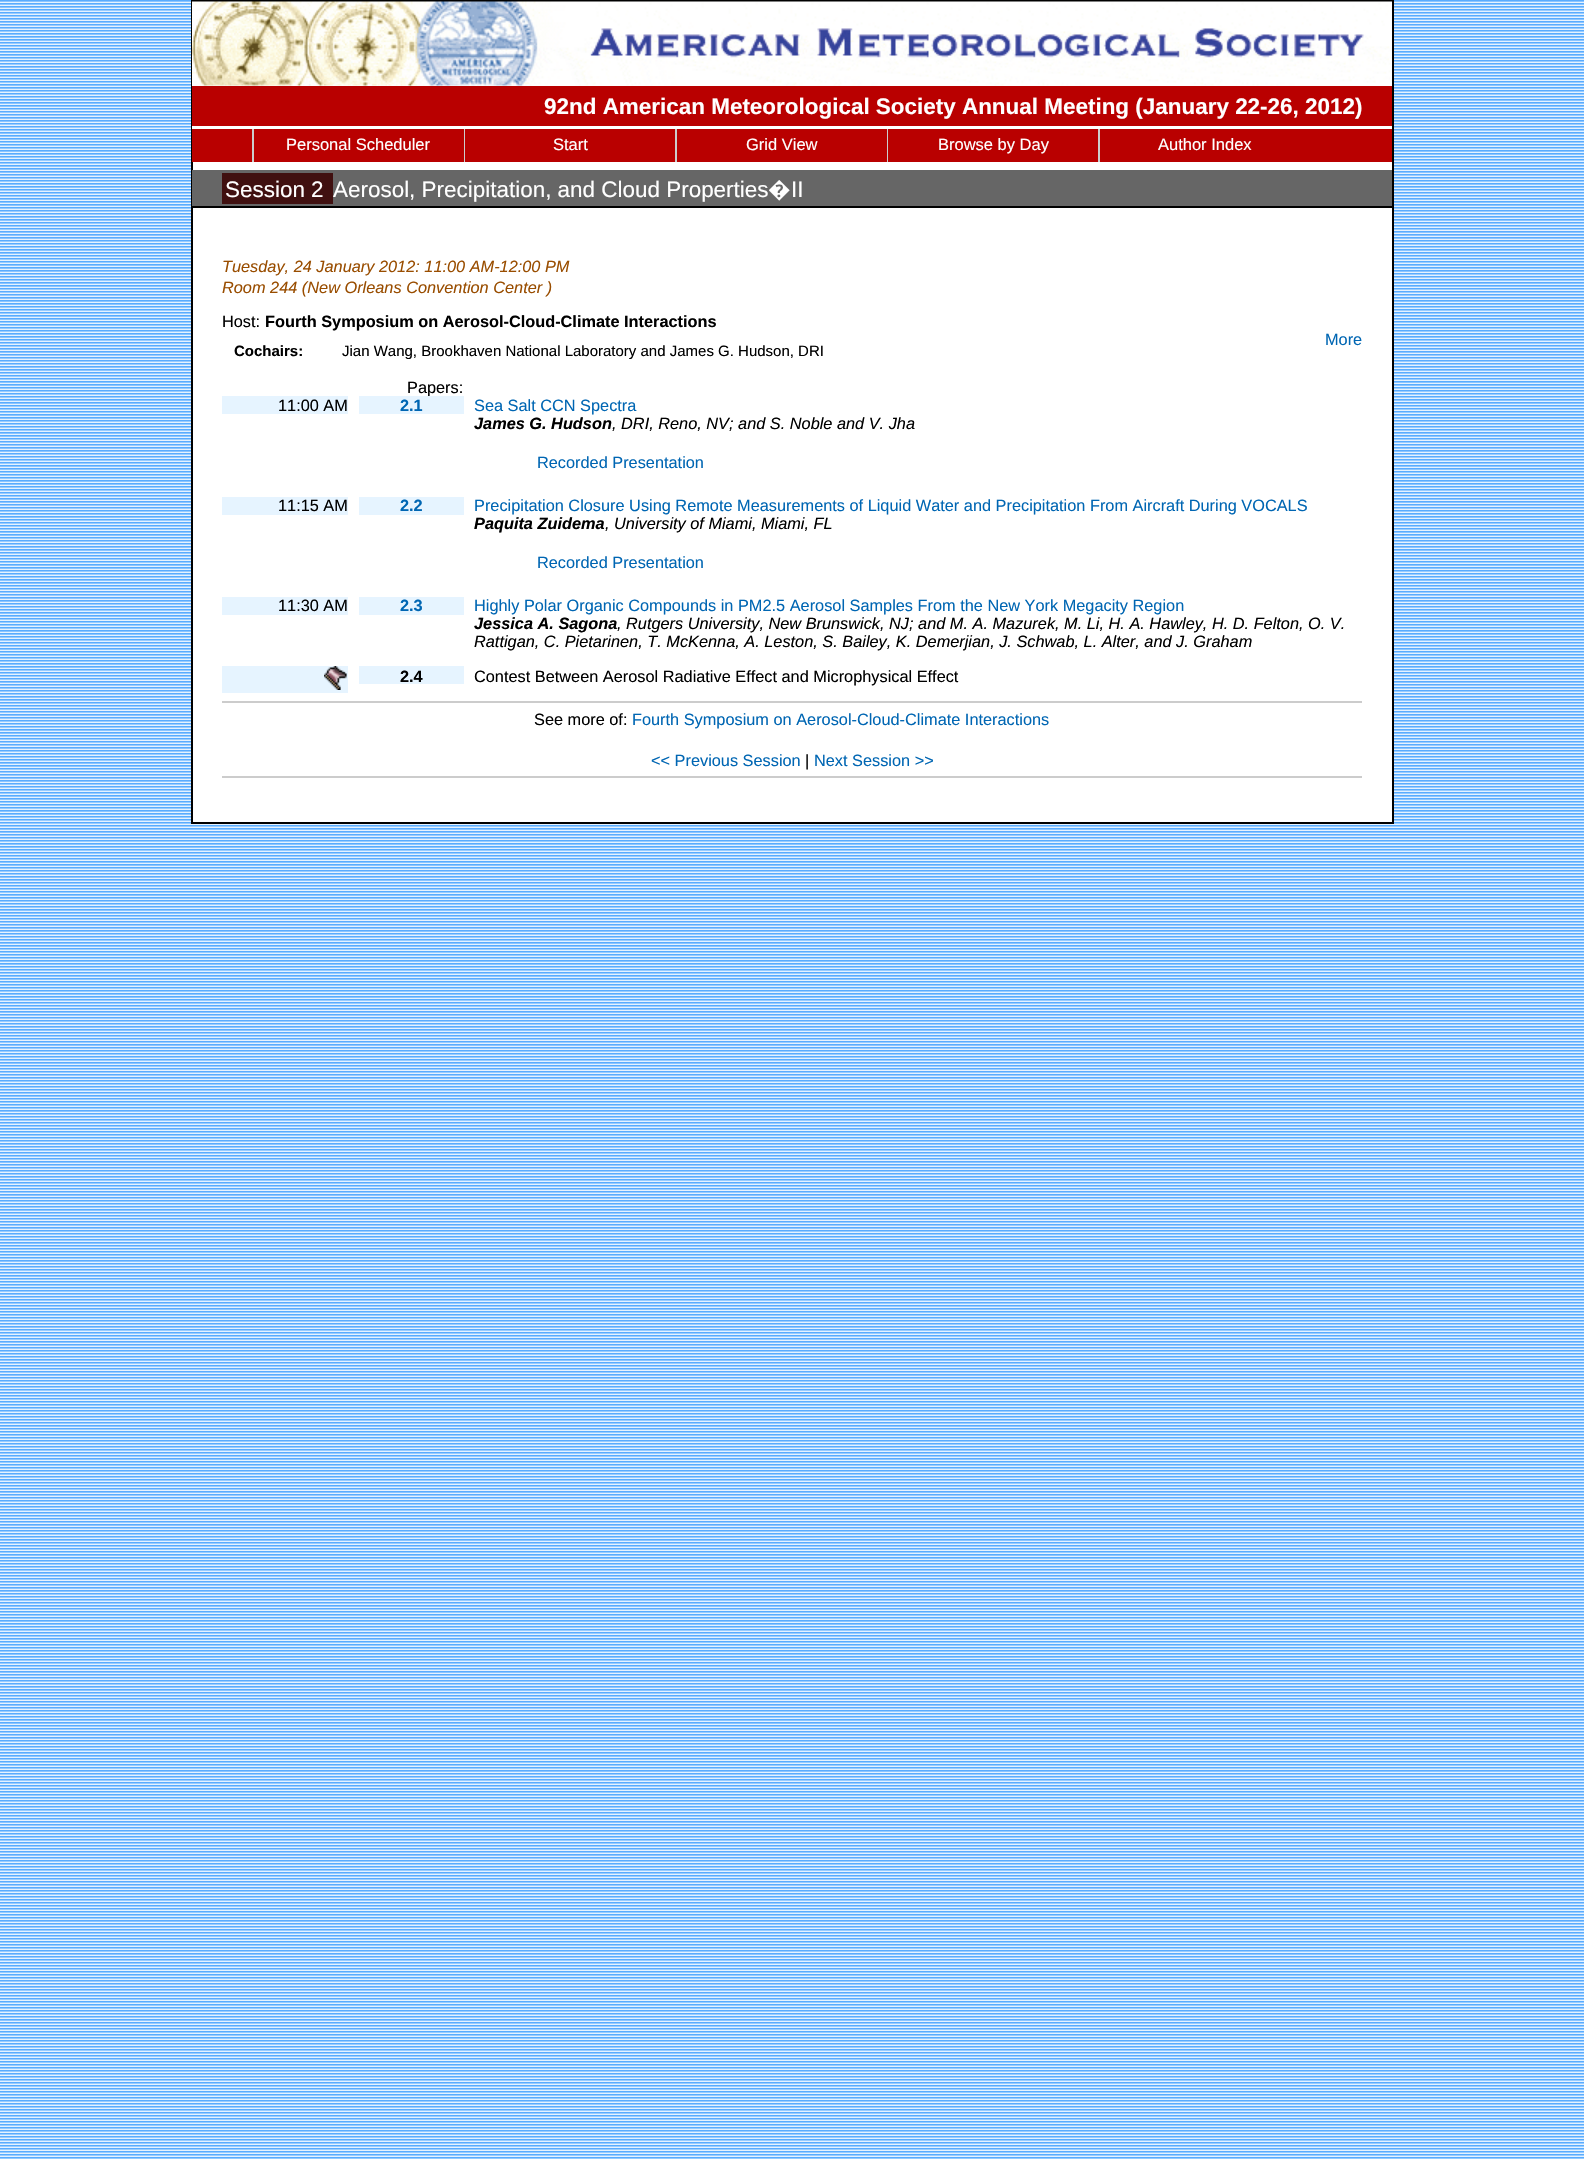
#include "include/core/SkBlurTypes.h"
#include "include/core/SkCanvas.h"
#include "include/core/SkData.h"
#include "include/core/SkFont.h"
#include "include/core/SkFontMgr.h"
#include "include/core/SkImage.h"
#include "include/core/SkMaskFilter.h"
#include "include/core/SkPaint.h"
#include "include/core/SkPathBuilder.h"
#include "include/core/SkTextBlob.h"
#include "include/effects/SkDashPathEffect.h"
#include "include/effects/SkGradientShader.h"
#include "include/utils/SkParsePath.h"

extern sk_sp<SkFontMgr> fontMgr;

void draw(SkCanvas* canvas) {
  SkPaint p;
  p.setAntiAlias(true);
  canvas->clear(SkColorSetRGB(149, 202, 255));
  canvas->drawImageRect(SkImages::DeferredFromEncodedData(SkData::MakeFromFileName("images/1.png")), SkRect::MakeLTRB(0, 0, 1584, 2158), SkSamplingOptions());
  p.setColor(SK_ColorWHITE);
  canvas->drawRect(SkRect::MakeLTRB(193, 162, 1392, 822), p);
  p.setColor(SK_ColorBLACK);
  canvas->drawRect(SkRect::MakeLTRB(1392, 0, 1394, 824), p);
  canvas->drawRect(SkRect::MakeLTRB(191, 822, 1394, 824), p);
  canvas->drawRect(SkRect::MakeLTRB(191, 0, 193, 824), p);
  p.setColor(SK_ColorWHITE);
  canvas->drawRect(SkRect::MakeLTRB(192, 85, 1392, 86), p);
  p.setColor(SK_ColorBLACK);
  canvas->drawRect(SkRect::MakeLTRB(192, 0, 1392, 2), p);
  canvas->drawImageRect(SkImages::DeferredFromEncodedData(SkData::MakeFromFileName("images/2.png")), SkRect::MakeLTRB(192, 1, 1392, 86), SkSamplingOptions());
  p.setColor(SkColorSetRGB(185, 0, 0));
  canvas->drawRect(SkRect::MakeLTRB(192, 86, 1392, 126), p);
  p.setColor(SK_ColorWHITE);
  canvas->drawRect(SkRect::MakeLTRB(192, 126, 1392, 129), p);
  p.setColor(SkColorSetRGB(185, 0, 0));
  canvas->drawRect(SkRect::MakeLTRB(192, 129, 1392, 162), p);
  p.setColor(SkColorSetRGB(204, 204, 204));
  canvas->drawRect(SkRect::MakeLTRB(252, 129, 254, 162), p);
  canvas->drawRect(SkRect::MakeLTRB(464, 129, 465, 162), p);
  canvas->drawRect(SkRect::MakeLTRB(675, 129, 677, 162), p);
  canvas->drawRect(SkRect::MakeLTRB(887, 129, 888, 162), p);
  canvas->drawRect(SkRect::MakeLTRB(1098, 129, 1100, 162), p);
  p.setColor(SkColorSetRGB(102, 102, 102));
  canvas->drawRect(SkRect::MakeLTRB(192, 170, 1392, 206), p);
  p.setColor(SK_ColorBLACK);
  canvas->drawRect(SkRect::MakeLTRB(192, 206, 1392, 208), p);
  p.setColor(SkColorSetRGB(64, 16, 16));
  canvas->drawRect(SkRect::MakeLTRB(222, 173, 333, 204), p);
  p.setColor(SkColorSetRGB(230, 244, 255));
  canvas->drawRect(SkRect::MakeLTRB(222, 396, 348, 414), p);
  canvas->drawRect(SkRect::MakeLTRB(222, 497, 348, 515), p);
  canvas->drawRect(SkRect::MakeLTRB(359, 497, 464, 515), p);
  canvas->drawRect(SkRect::MakeLTRB(222, 597, 348, 615), p);
  canvas->drawRect(SkRect::MakeLTRB(359, 597, 464, 615), p);
  canvas->drawRect(SkRect::MakeLTRB(222, 666, 348, 693), p);
  canvas->drawImageRect(SkImages::DeferredFromEncodedData(SkData::MakeFromFileName("images/3.png")), SkRect::MakeLTRB(324, 666, 347, 690), SkSamplingOptions());
  canvas->drawRect(SkRect::MakeLTRB(359, 666, 464, 684), p);
  p.setColor(SkColorSetRGB(204, 204, 204));
  canvas->drawRect(SkRect::MakeLTRB(222, 701, 1362, 703), p);
  canvas->drawRect(SkRect::MakeLTRB(222, 776, 1362, 778), p);
  SkFont font1(fontMgr->matchFamilyStyle("Liberation Sans", SkFontStyle::Bold()), 22.45f);
  font1.setSubpixel(true);
  p.setColor(SK_ColorWHITE);
  canvas->drawString("92nd American Meteorological Society Annual Meeting (January 22-26, 2012)", 544, 114, font1, p);
  SkFont font2(fontMgr->matchFamilyStyle("Liberation Sans", SkFontStyle::Normal()), 16.5f);
  font2.setSubpixel(true);
  canvas->drawString("Personal Scheduler", 286, 150, font2, p);
  canvas->drawString("Start", 553, 150, font2, p);
  canvas->drawString("Grid View", 746, 150, font2, p);
  canvas->drawString("Browse by Day", 938, 150, font2, p);
  canvas->drawString("Author Index", 1158, 150, font2, p);
  SkFont font3(fontMgr->matchFamilyStyle("Liberation Sans", SkFontStyle::Normal()), 22.45f);
  font3.setSubpixel(true);
  canvas->drawString("Session 2", 225, 197, font3, p);
  canvas->drawString("Aerosol, Precipitation, and Cloud Properties", 333, 197, font3, p);
  SkFont font4(fontMgr->matchFamilyStyle("Noto Sans", SkFontStyle::Normal()), 22.45f);
  font4.setSubpixel(true);
  canvas->drawString("�", 768, 197, font4, p);
  canvas->drawString("II", 791, 197, font3, p);
  SkFont font5(fontMgr->matchFamilyStyle("Liberation Sans", SkFontStyle::Italic()), 16.32f);
  font5.setSubpixel(true);
  p.setColor(SkColorSetRGB(153, 77, 0));
  canvas->drawString("Tuesday, 24 January 2012: 11:00 AM-12:00 PM", 222, 272, font5, p);
  canvas->drawString("Room 244 (New Orleans Convention Center )", 222, 293, font5, p);
  SkFont font6(fontMgr->matchFamilyStyle("Liberation Sans", SkFontStyle::Normal()), 16.32f);
  font6.setSubpixel(true);
  p.setColor(SK_ColorBLACK);
  canvas->drawString("Host:", 222, 327, font6, p);
  SkFont font7(fontMgr->matchFamilyStyle("Liberation Sans", SkFontStyle::Bold()), 16.32f);
  font7.setSubpixel(true);
  canvas->drawString("Fourth Symposium on Aerosol-Cloud-Climate Interactions", 265, 327, font7, p);
  p.setColor(SkColorSetRGB(0, 102, 179));
  canvas->drawString("More", 1325, 345, font6, p);
  SkFont font8(fontMgr->matchFamilyStyle("Liberation Sans", SkFontStyle::Bold()), 15);
  font8.setSubpixel(true);
  p.setColor(SK_ColorBLACK);
  canvas->drawString("Cochairs:", 234, 356, font8, p);
  SkFont font9(fontMgr->matchFamilyStyle("Liberation Sans", SkFontStyle::Normal()), 15);
  font9.setSubpixel(true);
  canvas->drawString("Jian Wang, Brookhaven National Laboratory and James G. Hudson, DRI", 342, 356, font9, p);
  canvas->drawString("Papers:", 407, 393, font6, p);
  canvas->drawString("11:00 AM", 278, 411, font6, p);
  p.setColor(SkColorSetRGB(230, 244, 255));
  canvas->drawRect(SkRect::MakeLTRB(359, 396, 464, 414), p);
  p.setColor(SkColorSetRGB(0, 102, 179));
  canvas->drawString("2.1", 400, 411, font7, p);
  canvas->drawString("Sea Salt CCN Spectra", 474, 411, font6, p);
  SkFont font10(fontMgr->matchFamilyStyle("Liberation Sans", SkFontStyle::BoldItalic()), 16.32f);
  font10.setSubpixel(true);
  p.setColor(SK_ColorBLACK);
  canvas->drawString("James G. Hudson", 474, 429, font10, p);
  canvas->drawString(", DRI, Reno, NV; and S. Noble and V. Jha", 612, 429, font5, p);
  p.setColor(SkColorSetRGB(0, 102, 179));
  canvas->drawString("Recorded Presentation", 537, 468, font6, p);
  p.setColor(SK_ColorBLACK);
  canvas->drawString("11:15 AM", 278, 511, font6, p);
  p.setColor(SkColorSetRGB(0, 102, 179));
  canvas->drawString("2.2", 400, 511, font7, p);
  canvas->drawString("Precipitation Closure Using Remote Measurements of Liquid Water and Precipitation From Aircraft During VOCALS", 474, 511, font6, p);
  p.setColor(SK_ColorBLACK);
  canvas->drawString("Paquita Zuidema", 474, 529, font10, p);
  canvas->drawString(", University of Miami, Miami, FL", 605, 529, font5, p);
  p.setColor(SkColorSetRGB(0, 102, 179));
  canvas->drawString("Recorded Presentation", 537, 568, font6, p);
  p.setColor(SK_ColorBLACK);
  canvas->drawString("11:30 AM", 278, 611, font6, p);
  p.setColor(SkColorSetRGB(0, 102, 179));
  canvas->drawString("2.3", 400, 611, font7, p);
  canvas->drawString("Highly Polar Organic Compounds in PM2.5 Aerosol Samples From the New York Megacity Region", 474, 611, font6, p);
  p.setColor(SK_ColorBLACK);
  canvas->drawString("Jessica A. Sagona", 474, 629, font10, p);
  canvas->drawString(", Rutgers University, New Brunswick, NJ; and M. A. Mazurek, M. Li, H. A. Hawley, H. D. Felton, O. V.", 617, 629, font5, p);
  canvas->drawString("Rattigan, C. Pietarinen, T. McKenna, A. Leston, S. Bailey, K. Demerjian, J. Schwab, L. Alter, and J. Graham", 474, 647, font5, p);
  canvas->drawString("2.4", 400, 682, font7, p);
  canvas->drawString("Contest Between Aerosol Radiative Effect and Microphysical Effect", 474, 682, font6, p);
  canvas->drawString("See more of:", 534, 725, font6, p);
  p.setColor(SkColorSetRGB(0, 102, 179));
  canvas->drawString("Fourth Symposium on Aerosol-Cloud-Climate Interactions", 632, 725, font6, p);
  canvas->drawString("<< Previous Session", 651, 766, font6, p);
  p.setColor(SK_ColorBLACK);
  canvas->drawString("|", 805, 766, font6, p);
  p.setColor(SkColorSetRGB(0, 102, 179));
  canvas->drawString("Next Session >>", 814, 766, font6, p);
}
